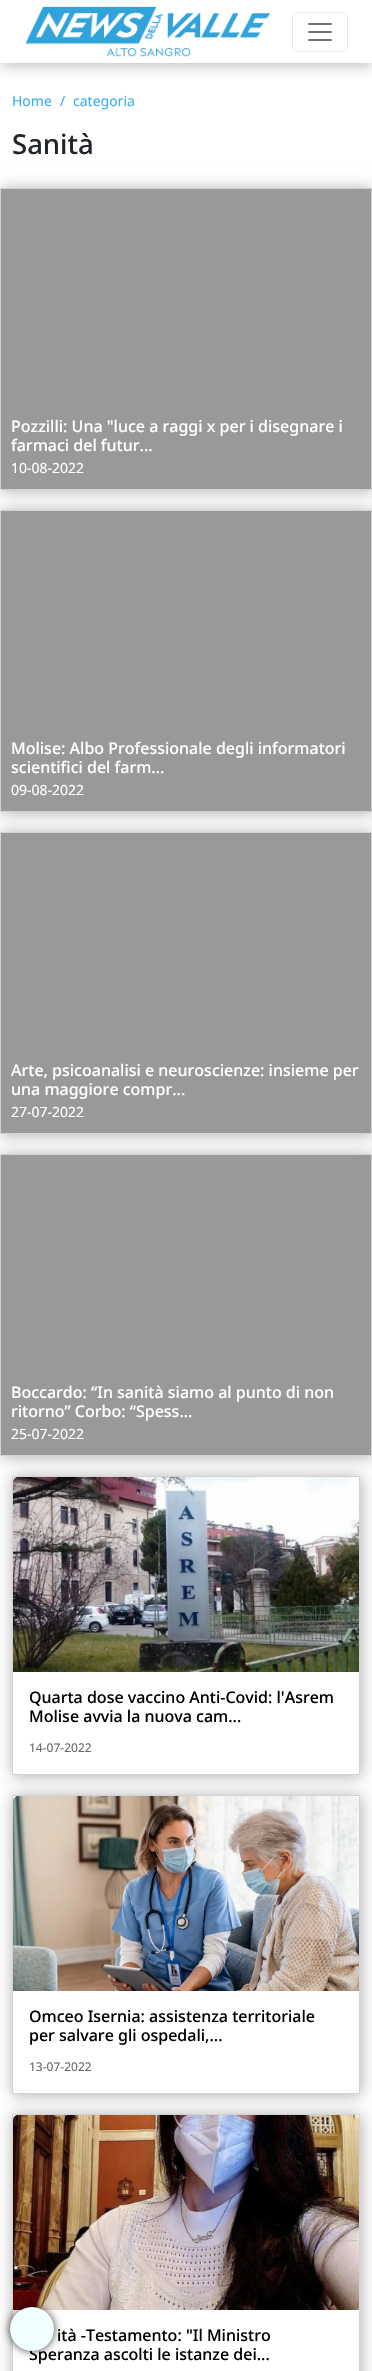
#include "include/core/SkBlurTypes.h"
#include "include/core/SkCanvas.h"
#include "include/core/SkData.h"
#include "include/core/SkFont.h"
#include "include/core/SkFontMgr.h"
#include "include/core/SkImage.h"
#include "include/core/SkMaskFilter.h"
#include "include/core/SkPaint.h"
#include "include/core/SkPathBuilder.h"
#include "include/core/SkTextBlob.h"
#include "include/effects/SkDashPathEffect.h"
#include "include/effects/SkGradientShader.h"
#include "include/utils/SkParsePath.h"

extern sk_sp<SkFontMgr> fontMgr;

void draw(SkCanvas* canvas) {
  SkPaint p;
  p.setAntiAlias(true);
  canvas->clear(SK_ColorWHITE);
  canvas->save();
  canvas->clipRect(SkRect::MakeLTRB(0, 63, 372, 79));
  p.setColor(SkColorSetRGB(175, 175, 175));
  p.setMaskFilter(SkMaskFilter::MakeBlur(kNormal_SkBlurStyle, 7.5f));
  canvas->drawRect(SkRect::MakeLTRB(1, 1, 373, 64), p);
  p.setMaskFilter(nullptr);
  canvas->restore();
  canvas->drawImageRect(SkImages::DeferredFromEncodedData(SkData::MakeFromFileName("images/1.png")), SkRect::MakeLTRB(25, 6, 270, 57), SkSamplingOptions());
  p.setStyle(SkPaint::kStroke_Style);
  p.setStrokeWidth(1);
  p.setColor(SkColorSetRGB(230, 230, 230));
  canvas->drawRoundRect(SkRect::MakeLTRB(292.5f, 12.5f, 347.5f, 51.5f), 5.5f, 5.5f, p);
  canvas->drawImageRect(SkImages::DeferredFromEncodedData(SkData::MakeFromFileName("images/2.png")), SkRect::MakeLTRB(308, 23, 332, 41), SkSamplingOptions());
  p.setStyle(SkPaint::kFill_Style);
  p.setColor(SkColorSetRGB(175, 175, 175));
  p.setMaskFilter(SkMaskFilter::MakeBlur(kNormal_SkBlurStyle, 7.5f));
  canvas->drawRect(SkRect::MakeLTRB(1, 189, 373, 491), p);
  p.setMaskFilter(nullptr);
  p.setStyle(SkPaint::kStroke_Style);
  p.setColor(SkColorSetRGB(210, 210, 210));
  canvas->drawRect(SkRect::MakeLTRB(0.5f, 188.5f, 371.5f, 489.5f), p);
  p.setStyle(SkPaint::kFill_Style);
  p.setColor(SkColorSetRGB(153, 153, 153));
  canvas->drawRect(SkRect::MakeLTRB(1, 189, 371, 489), p);
  p.setColor(SkColorSetRGB(175, 175, 175));
  p.setMaskFilter(SkMaskFilter::MakeBlur(kNormal_SkBlurStyle, 7.5f));
  canvas->drawRect(SkRect::MakeLTRB(1, 511, 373, 813), p);
  p.setMaskFilter(nullptr);
  p.setStyle(SkPaint::kStroke_Style);
  p.setColor(SkColorSetRGB(210, 210, 210));
  canvas->drawRect(SkRect::MakeLTRB(0.5f, 510.5f, 371.5f, 811.5f), p);
  p.setStyle(SkPaint::kFill_Style);
  p.setColor(SkColorSetRGB(153, 153, 153));
  canvas->drawRect(SkRect::MakeLTRB(1, 511, 371, 811), p);
  p.setColor(SkColorSetRGB(175, 175, 175));
  p.setMaskFilter(SkMaskFilter::MakeBlur(kNormal_SkBlurStyle, 7.5f));
  canvas->drawRect(SkRect::MakeLTRB(1, 833, 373, 1135), p);
  p.setMaskFilter(nullptr);
  p.setStyle(SkPaint::kStroke_Style);
  p.setColor(SkColorSetRGB(210, 210, 210));
  canvas->drawRect(SkRect::MakeLTRB(0.5f, 832.5f, 371.5f, 1133.5f), p);
  p.setStyle(SkPaint::kFill_Style);
  p.setColor(SkColorSetRGB(153, 153, 153));
  canvas->drawRect(SkRect::MakeLTRB(1, 833, 371, 1133), p);
  p.setColor(SkColorSetRGB(175, 175, 175));
  p.setMaskFilter(SkMaskFilter::MakeBlur(kNormal_SkBlurStyle, 7.5f));
  canvas->drawRect(SkRect::MakeLTRB(1, 1155, 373, 1457), p);
  p.setMaskFilter(nullptr);
  p.setStyle(SkPaint::kStroke_Style);
  p.setColor(SkColorSetRGB(210, 210, 210));
  canvas->drawRect(SkRect::MakeLTRB(0.5f, 1154.5f, 371.5f, 1455.5f), p);
  p.setStyle(SkPaint::kFill_Style);
  p.setColor(SkColorSetRGB(153, 153, 153));
  canvas->drawRect(SkRect::MakeLTRB(1, 1155, 371, 1455), p);
  canvas->save();
  canvas->clipPath(SkPathBuilder(SkPathFillType::kEvenOdd).moveTo(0, 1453).lineTo(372, 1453).lineTo(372, 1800).lineTo(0, 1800).close().moveTo(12, 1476).lineTo(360, 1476).lineTo(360, 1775).lineTo(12, 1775).close().detach(), true);
  p.setColor(SkColorSetRGB(175, 175, 175));
  p.setMaskFilter(SkMaskFilter::MakeBlur(kNormal_SkBlurStyle, 7.5f));
  canvas->drawRect(SkRect::MakeLTRB(13, 1477, 361, 1776), p);
  p.setMaskFilter(nullptr);
  canvas->restore();
  p.setStyle(SkPaint::kStroke_Style);
  p.setColor(SkColorSetRGB(210, 210, 210));
  canvas->drawRect(SkRect::MakeLTRB(12.5f, 1476.5f, 359.5f, 1774.5f), p);
  canvas->drawImageRect(SkImages::DeferredFromEncodedData(SkData::MakeFromFileName("images/3.png")), SkRect::MakeLTRB(13, 1477, 359, 1672), SkSamplingOptions());
  canvas->save();
  canvas->clipPath(SkPathBuilder(SkPathFillType::kEvenOdd).moveTo(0, 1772).lineTo(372, 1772).lineTo(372, 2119).lineTo(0, 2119).close().moveTo(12, 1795).lineTo(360, 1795).lineTo(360, 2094).lineTo(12, 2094).close().detach(), true);
  p.setStyle(SkPaint::kFill_Style);
  p.setColor(SkColorSetRGB(175, 175, 175));
  p.setMaskFilter(SkMaskFilter::MakeBlur(kNormal_SkBlurStyle, 7.5f));
  canvas->drawRect(SkRect::MakeLTRB(13, 1796, 361, 2095), p);
  p.setMaskFilter(nullptr);
  canvas->restore();
  p.setStyle(SkPaint::kStroke_Style);
  p.setColor(SkColorSetRGB(210, 210, 210));
  canvas->drawRect(SkRect::MakeLTRB(12.5f, 1795.5f, 359.5f, 2093.5f), p);
  canvas->drawImageRect(SkImages::DeferredFromEncodedData(SkData::MakeFromFileName("images/4.png")), SkRect::MakeLTRB(13, 1796, 359, 1991), SkSamplingOptions());
  canvas->save();
  canvas->clipPath(SkPathBuilder(SkPathFillType::kEvenOdd).moveTo(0, 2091).lineTo(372, 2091).lineTo(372, 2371).lineTo(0, 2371).close().moveTo(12, 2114).lineTo(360, 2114).lineTo(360, 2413).lineTo(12, 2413).close().detach(), true);
  p.setStyle(SkPaint::kFill_Style);
  p.setColor(SkColorSetRGB(175, 175, 175));
  p.setMaskFilter(SkMaskFilter::MakeBlur(kNormal_SkBlurStyle, 7.5f));
  canvas->drawRect(SkRect::MakeLTRB(13, 2115, 361, 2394), p);
  p.setMaskFilter(nullptr);
  canvas->restore();
  p.setStyle(SkPaint::kStroke_Style);
  p.setColor(SkColorSetRGB(210, 210, 210));
  canvas->drawRect(SkRect::MakeLTRB(12.5f, 2114.5f, 359.5f, 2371.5f), p);
  canvas->drawImageRect(SkImages::DeferredFromEncodedData(SkData::MakeFromFileName("images/5.png")), SkRect::MakeLTRB(13, 2115, 359, 2310), SkSamplingOptions());
  p.setStyle(SkPaint::kFill_Style);
  p.setColor(SkColorSetARGB(191, 0, 0, 0));
  p.setMaskFilter(SkMaskFilter::MakeBlur(kNormal_SkBlurStyle, 4));
  canvas->drawRoundRect(SkRect::MakeLTRB(10, 2307, 54, 2351), 22, 22, p);
  p.setMaskFilter(nullptr);
  SkFont font1(fontMgr->matchFamilyStyle("Noto Sans", SkFontStyle::Normal()), 14);
  font1.setSubpixel(true);
  p.setColor(SkColorSetRGB(61, 174, 249));
  canvas->drawString("Home", 12, 106, font1, p);
  canvas->drawString("/", 60, 106, font1, p);
  canvas->drawString("categoria", 73, 106, font1, p);
  SkFont font2(fontMgr->matchFamilyStyle("Noto Sans", SkFontStyle(500, SkFontStyle::kNormal_Width, SkFontStyle::kUpright_Slant)), 27.5f);
  font2.setSubpixel(true);
  p.setColor(SkColorSetRGB(33, 37, 41));
  canvas->drawString("Sanità", 12, 154, font2, p);
  SkFont font3(fontMgr->matchFamilyStyle("Noto Sans", SkFontStyle(500, SkFontStyle::kNormal_Width, SkFontStyle::kUpright_Slant)), 16);
  font3.setSubpixel(true);
  p.setColor(SK_ColorWHITE);
  canvas->drawString("Pozzilli: Una \"luce a raggi x per i disegnare i", 11, 432, font3, p);
  canvas->drawString("farmaci del futur...", 11, 451, font3, p);
  canvas->drawString("10-08-2022", 11, 473, font1, p);
  canvas->drawString("Molise: Albo Professionale degli informatori", 11, 754, font3, p);
  canvas->drawString("scientifici del farm...", 11, 773, font3, p);
  canvas->drawString("09-08-2022", 11, 795, font1, p);
  canvas->drawString("Arte, psicoanalisi e neuroscienze: insieme per", 11, 1076, font3, p);
  canvas->drawString("una maggiore compr...", 11, 1095, font3, p);
  canvas->drawString("27-07-2022", 11, 1117, font1, p);
  canvas->drawString("Boccardo: “In sanità siamo al punto di non", 11, 1398, font3, p);
  canvas->drawString("ritorno” Corbo: “Spess...", 11, 1417, font3, p);
  canvas->drawString("25-07-2022", 11, 1439, font1, p);
  p.setColor(SK_ColorBLACK);
  canvas->drawString("Quarta dose vaccino Anti-Covid: l'Asrem", 29, 1703, font3, p);
  canvas->drawString("Molise avvia la nuova cam...", 29, 1722, font3, p);
  SkFont font4(fontMgr->matchFamilyStyle("Noto Sans", SkFontStyle::Normal()), 12);
  font4.setSubpixel(true);
  p.setColor(SkColorSetRGB(102, 102, 102));
  canvas->drawString("14-07-2022", 29, 1752, font4, p);
  p.setColor(SK_ColorBLACK);
  canvas->drawString("Omceo Isernia: assistenza territoriale", 29, 2022, font3, p);
  canvas->drawString("per salvare gli ospedali,...", 29, 2041, font3, p);
  p.setColor(SkColorSetRGB(102, 102, 102));
  canvas->drawString("13-07-2022", 29, 2071, font4, p);
  p.setColor(SK_ColorBLACK);
  canvas->drawString("ità -Testamento: \"Il Ministro", 57, 2341, font3, p);
  canvas->drawString("Speranza ascolti le istanze dei...", 29, 2360, font3, p);
  p.setColor(SkColorSetRGB(240, 255, 255));
  canvas->drawCircle(32, 2329, 22, p);
}
